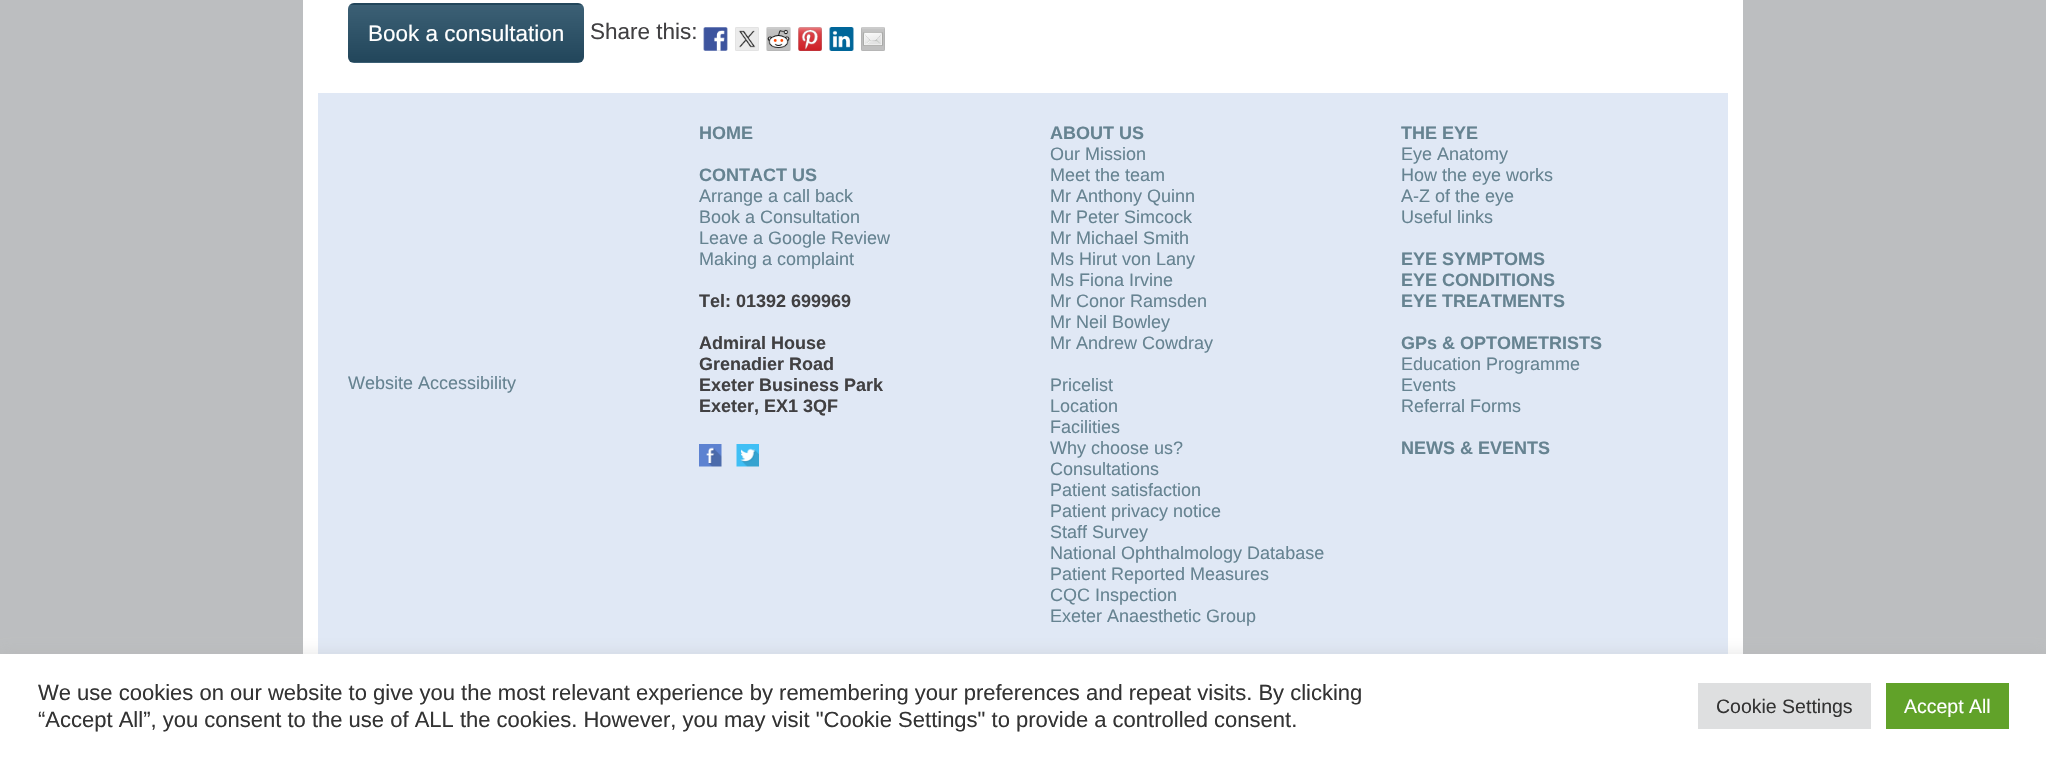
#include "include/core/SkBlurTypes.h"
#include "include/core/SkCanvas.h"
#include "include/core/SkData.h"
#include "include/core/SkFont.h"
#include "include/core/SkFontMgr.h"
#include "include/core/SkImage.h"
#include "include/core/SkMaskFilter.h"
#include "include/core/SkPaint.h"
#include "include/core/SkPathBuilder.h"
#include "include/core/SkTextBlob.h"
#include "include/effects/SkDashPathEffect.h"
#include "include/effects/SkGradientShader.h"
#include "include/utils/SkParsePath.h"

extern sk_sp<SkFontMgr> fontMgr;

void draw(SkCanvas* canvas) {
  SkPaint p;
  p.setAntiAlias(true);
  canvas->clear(SkColorSetRGB(188, 190, 192));
  p.setColor(SK_ColorWHITE);
  canvas->drawRect(SkRect::MakeLTRB(303, 0, 1743, 654), p);
  p.setColor(SkColorSetRGB(38, 78, 101));
  canvas->drawRoundRect(SkRect::MakeLTRB(348, 3, 584, 63), 6, 6, p);
  canvas->save();
  canvas->clipPath(SkPathBuilder().moveTo(354, 3).lineTo(578, 3).cubicTo(581.5f, 3, 584, 5.5f, 584, 9).lineTo(584, 57).cubicTo(584, 60.5f, 581.5f, 63, 578, 63).lineTo(354, 63).cubicTo(350.5f, 63, 348, 60.5f, 348, 57).lineTo(348, 9).cubicTo(348, 5.5f, 350.5f, 3, 354, 3).close().detach(), true);
  {
    const SkColor colors[] = {SkColorSetARGB(26, 0, 0, 0), SkColorSetARGB(26, 255, 255, 255)};
    const float stops[] = {0, 1};
    const SkPoint ends[] = {{466, 4.5f}, {466, -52}};
    p.setShader(SkGradientShader::MakeLinear(ends, colors, stops, 2, SkTileMode::kClamp));
    p.setAlpha(255);
  }
  canvas->drawRect(SkRect::MakeLTRB(348, 3, 584, 5), p);
  {
    const SkColor colors[] = {SkColorSetARGB(26, 0, 0, 0), SkColorSetARGB(26, 255, 255, 255)};
    const float stops[] = {0, 1};
    const SkPoint ends[] = {{466, 62}, {466, 4.5f}};
    p.setShader(SkGradientShader::MakeLinear(ends, colors, stops, 2, SkTileMode::kClamp));
    p.setAlpha(255);
  }
  canvas->drawRect(SkRect::MakeLTRB(348, 5, 584, 62), p);
  {
    const SkColor colors[] = {SkColorSetARGB(26, 0, 0, 0), SkColorSetARGB(26, 255, 255, 255)};
    const float stops[] = {0, 1};
    const SkPoint ends[] = {{466, 119}, {466, 62}};
    p.setShader(SkGradientShader::MakeLinear(ends, colors, stops, 2, SkTileMode::kClamp));
    p.setAlpha(255);
  }
  canvas->drawRect(SkRect::MakeLTRB(348, 62, 584, 63), p);
  canvas->restore();
  canvas->drawImageRect(SkImages::DeferredFromEncodedData(SkData::MakeFromFileName("images/1.png")), SkRect::MakeLTRB(703, 27, 728, 51), SkSamplingOptions());
  canvas->drawImageRect(SkImages::DeferredFromEncodedData(SkData::MakeFromFileName("images/2.png")), SkRect::MakeLTRB(735, 27, 759, 51), SkSamplingOptions());
  canvas->drawImageRect(SkImages::DeferredFromEncodedData(SkData::MakeFromFileName("images/3.png")), SkRect::MakeLTRB(766, 27, 791, 51), SkSamplingOptions());
  canvas->drawImageRect(SkImages::DeferredFromEncodedData(SkData::MakeFromFileName("images/4.png")), SkRect::MakeLTRB(798, 27, 822, 51), SkSamplingOptions());
  canvas->drawImageRect(SkImages::DeferredFromEncodedData(SkData::MakeFromFileName("images/5.png")), SkRect::MakeLTRB(829, 27, 854, 51), SkSamplingOptions());
  canvas->drawImageRect(SkImages::DeferredFromEncodedData(SkData::MakeFromFileName("images/6.png")), SkRect::MakeLTRB(861, 27, 885, 51), SkSamplingOptions());
  p.setShader(nullptr);
  p.setColor(SkColorSetRGB(224, 232, 245));
  canvas->drawRect(SkRect::MakeLTRB(318, 93, 1728, 654), p);
  canvas->drawImageRect(SkImages::DeferredFromEncodedData(SkData::MakeFromFileName("images/7.png")), SkRect::MakeLTRB(699, 444, 722, 467), SkSamplingOptions());
  canvas->drawImageRect(SkImages::DeferredFromEncodedData(SkData::MakeFromFileName("images/8.png")), SkRect::MakeLTRB(736, 444, 759, 467), SkSamplingOptions());
  p.setColor(SkColorSetARGB(77, 172, 171, 171));
  p.setMaskFilter(SkMaskFilter::MakeBlur(kNormal_SkBlurStyle, 7.5f));
  canvas->drawRect(SkRect::MakeLTRB(0, 653, 2046, 756), p);
  p.setMaskFilter(nullptr);
  p.setColor(SK_ColorWHITE);
  canvas->drawRect(SkRect::MakeLTRB(0, 654, 2046, 757), p);
  p.setColor(SkColorSetRGB(222, 223, 224));
  canvas->drawRect(SkRect::MakeLTRB(1698, 683, 1871, 729), p);
  p.setColor(SkColorSetRGB(97, 162, 41));
  canvas->drawRect(SkRect::MakeLTRB(1886, 683, 2009, 729), p);
  SkFont font1(fontMgr->matchFamilyStyle("Liberation Sans", SkFontStyle::Normal()), 22.5f);
  font1.setSubpixel(true);
  p.setColor(SK_ColorWHITE);
  canvas->drawString("Book a consultation", 368, 41, font1, p);
  p.setColor(SkColorSetRGB(65, 64, 66));
  canvas->drawString("Share this:", 590, 39, font1, p);
  SkFont font2(fontMgr->matchFamilyStyle("Liberation Sans", SkFontStyle::Normal()), 18);
  font2.setSubpixel(true);
  p.setColor(SkColorSetRGB(102, 131, 145));
  canvas->drawString("Website Accessibility", 348, 389, font2, p);
  SkFont font3(fontMgr->matchFamilyStyle("Liberation Sans", SkFontStyle::Bold()), 18);
  font3.setSubpixel(true);
  canvas->drawString("HOME", 699, 139, font3, p);
  canvas->drawString("CONTACT US", 699, 181, font3, p);
  canvas->drawString("Arrange a call back", 699, 202, font2, p);
  canvas->drawString("Book a Consultation", 699, 223, font2, p);
  canvas->drawString("Leave a Google Review", 699, 244, font2, p);
  canvas->drawString("Making a complaint", 699, 265, font2, p);
  p.setColor(SkColorSetRGB(65, 64, 66));
  canvas->drawString("Tel: 01392 699969", 699, 307, font3, p);
  canvas->drawString("Admiral House", 699, 349, font3, p);
  canvas->drawString("Grenadier Road", 699, 370, font3, p);
  canvas->drawString("Exeter Business Park", 699, 391, font3, p);
  canvas->drawString("Exeter, EX1 3QF", 699, 412, font3, p);
  p.setColor(SkColorSetRGB(102, 131, 145));
  canvas->drawString("ABOUT US", 1050, 139, font3, p);
  canvas->drawString("Our Mission", 1050, 160, font2, p);
  canvas->drawString("Meet the team", 1050, 181, font2, p);
  canvas->drawString("Mr Anthony Quinn", 1050, 202, font2, p);
  canvas->drawString("Mr Peter Simcock", 1050, 223, font2, p);
  canvas->drawString("Mr Michael Smith", 1050, 244, font2, p);
  canvas->drawString("Ms Hirut von Lany", 1050, 265, font2, p);
  canvas->drawString("Ms Fiona Irvine", 1050, 286, font2, p);
  canvas->drawString("Mr Conor Ramsden", 1050, 307, font2, p);
  canvas->drawString("Mr Neil Bowley", 1050, 328, font2, p);
  canvas->drawString("Mr Andrew Cowdray", 1050, 349, font2, p);
  canvas->drawString("Pricelist", 1050, 391, font2, p);
  canvas->drawString("Location", 1050, 412, font2, p);
  canvas->drawString("Facilities", 1050, 433, font2, p);
  canvas->drawString("Why choose us?", 1050, 454, font2, p);
  canvas->drawString("Consultations", 1050, 475, font2, p);
  canvas->drawString("Patient satisfaction", 1050, 496, font2, p);
  canvas->drawString("Patient privacy notice", 1050, 517, font2, p);
  canvas->drawString("Staff Survey", 1050, 538, font2, p);
  canvas->drawString("National Ophthalmology Database", 1050, 559, font2, p);
  canvas->drawString("Patient Reported Measures", 1050, 580, font2, p);
  canvas->drawString("CQC Inspection", 1050, 601, font2, p);
  canvas->drawString("Exeter Anaesthetic Group", 1050, 622, font2, p);
  canvas->drawString("THE EYE", 1401, 139, font3, p);
  canvas->drawString("Eye Anatomy", 1401, 160, font2, p);
  canvas->drawString("How the eye works", 1401, 181, font2, p);
  canvas->drawString("A-Z of the eye", 1401, 202, font2, p);
  canvas->drawString("Useful links", 1401, 223, font2, p);
  canvas->drawString("EYE SYMPTOMS", 1401, 265, font3, p);
  canvas->drawString("EYE CONDITIONS", 1401, 286, font3, p);
  canvas->drawString("EYE TREATMENTS", 1401, 307, font3, p);
  canvas->drawString("GPs & OPTOMETRISTS", 1401, 349, font3, p);
  canvas->drawString("Education Programme", 1401, 370, font2, p);
  canvas->drawString("Events", 1401, 391, font2, p);
  canvas->drawString("Referral Forms", 1401, 412, font2, p);
  canvas->drawString("NEWS & EVENTS", 1401, 454, font3, p);
  SkFont font4(fontMgr->matchFamilyStyle("Liberation Sans", SkFontStyle::Normal()), 22);
  font4.setSubpixel(true);
  p.setColor(SkColorSetRGB(51, 51, 51));
  canvas->drawString("We use cookies on our website to give you the most relevant experience by remembering your preferences and repeat visits. By clicking", 38, 700, font4, p);
  canvas->drawString("“Accept All”, you consent to the use of ALL the cookies. However, you may visit \"Cookie Settings\" to provide a controlled consent.", 38, 727, font4, p);
  SkFont font5(fontMgr->matchFamilyStyle("Liberation Sans", SkFontStyle::Normal()), 19.5f);
  font5.setSubpixel(true);
  canvas->drawString("Cookie Settings", 1716, 713, font5, p);
  p.setColor(SK_ColorWHITE);
  canvas->drawString("Accept All", 1904, 713, font5, p);
}
